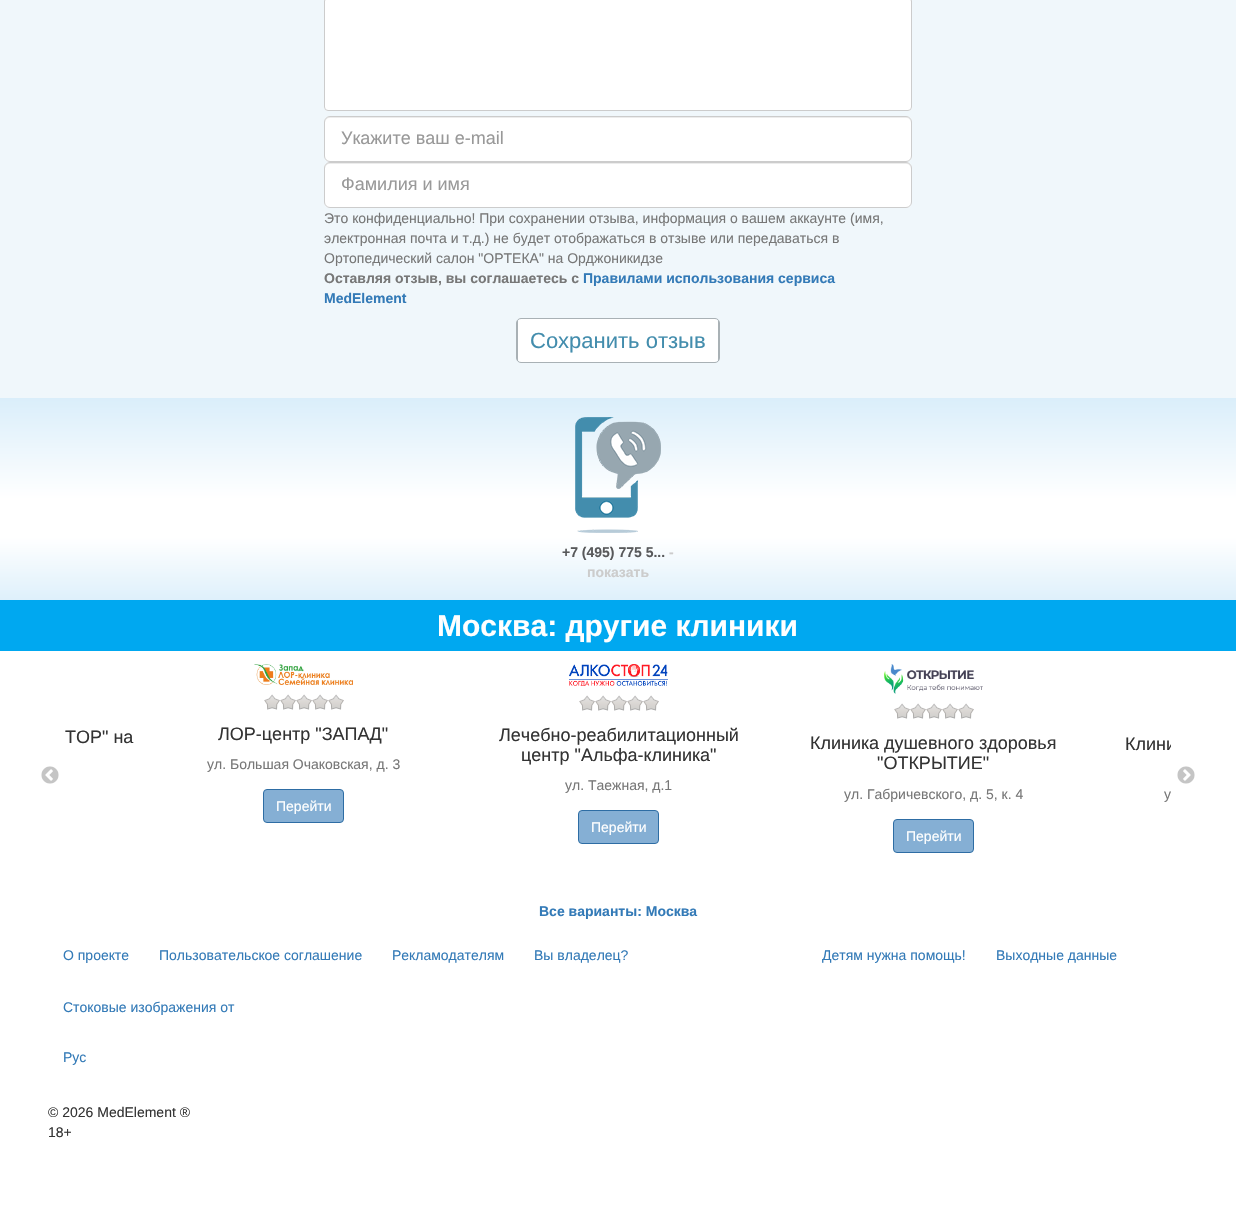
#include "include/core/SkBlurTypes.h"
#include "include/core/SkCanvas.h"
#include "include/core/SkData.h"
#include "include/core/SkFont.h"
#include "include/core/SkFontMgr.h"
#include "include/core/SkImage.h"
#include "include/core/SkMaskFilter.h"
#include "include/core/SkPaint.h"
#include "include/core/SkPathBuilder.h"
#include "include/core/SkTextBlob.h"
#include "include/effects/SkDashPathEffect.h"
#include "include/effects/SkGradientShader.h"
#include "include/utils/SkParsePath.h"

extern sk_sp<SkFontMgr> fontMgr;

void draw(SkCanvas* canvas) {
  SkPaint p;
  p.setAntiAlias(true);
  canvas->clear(SK_ColorWHITE);
  p.setColor(SkColorSetRGB(240, 247, 251));
  canvas->drawRect(SkRect::MakeLTRB(0, 0, 1236, 398), p);
  p.setColor(SK_ColorWHITE);
  canvas->drawRoundRect(SkRect::MakeLTRB(324, -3, 912, 111), 4, 4, p);
  p.setColor(SkColorSetRGB(236, 236, 236));
  canvas->drawPath(SkPathBuilder().moveTo(328, -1).lineTo(908, -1).cubicTo(910, -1, 911, 0, 911, 2).lineTo(911, 1).cubicTo(911, -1, 910, -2, 908, -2).lineTo(328, -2).cubicTo(326, -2, 325, -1, 325, 1).lineTo(325, 2).cubicTo(325, 0, 326, -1, 328, -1).close().detach(), p);
  p.setStyle(SkPaint::kStroke_Style);
  p.setStrokeWidth(1);
  p.setColor(SkColorSetRGB(204, 204, 204));
  canvas->drawRoundRect(SkRect::MakeLTRB(324.5f, -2.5f, 911.5f, 110.5f), 3.5f, 3.5f, p);
  p.setStyle(SkPaint::kFill_Style);
  p.setColor(SK_ColorWHITE);
  canvas->drawRoundRect(SkRect::MakeLTRB(324, 116, 912, 162), 6, 6, p);
  p.setColor(SkColorSetRGB(236, 236, 236));
  canvas->drawPath(SkPathBuilder().moveTo(330, 118).lineTo(906, 118).cubicTo(909, 118, 911, 120, 911, 123).lineTo(911, 122).cubicTo(911, 119, 909, 117, 906, 117).lineTo(330, 117).cubicTo(327, 117, 325, 119, 325, 122).lineTo(325, 123).cubicTo(325, 120, 327, 118, 330, 118).close().detach(), p);
  p.setStyle(SkPaint::kStroke_Style);
  p.setColor(SkColorSetRGB(204, 204, 204));
  canvas->drawRoundRect(SkRect::MakeLTRB(324.5f, 116.5f, 911.5f, 161.5f), 5.5f, 5.5f, p);
  p.setStyle(SkPaint::kFill_Style);
  p.setColor(SK_ColorWHITE);
  canvas->drawRoundRect(SkRect::MakeLTRB(324, 162, 912, 208), 6, 6, p);
  p.setColor(SkColorSetRGB(236, 236, 236));
  canvas->drawPath(SkPathBuilder().moveTo(330, 164).lineTo(906, 164).cubicTo(909, 164, 911, 166, 911, 169).lineTo(911, 168).cubicTo(911, 165, 909, 163, 906, 163).lineTo(330, 163).cubicTo(327, 163, 325, 165, 325, 168).lineTo(325, 169).cubicTo(325, 166, 327, 164, 330, 164).close().detach(), p);
  p.setStyle(SkPaint::kStroke_Style);
  p.setColor(SkColorSetRGB(204, 204, 204));
  canvas->drawRoundRect(SkRect::MakeLTRB(324.5f, 162.5f, 911.5f, 207.5f), 5.5f, 5.5f, p);
  p.setStyle(SkPaint::kFill_Style);
  p.setColor(SK_ColorWHITE);
  canvas->drawPath(SkPathBuilder().moveTo(521, 319).lineTo(715, 319).cubicTo(717, 319, 718, 321, 718, 323).lineTo(718, 358).cubicTo(718, 360, 717, 362, 715, 362).lineTo(521, 362).cubicTo(519, 362, 518, 360, 518, 358).lineTo(518, 323).cubicTo(518, 321, 519, 319, 521, 319).close().detach(), p);
  p.setStyle(SkPaint::kStroke_Style);
  p.setColor(SkColorSetRGB(169, 177, 181));
  canvas->drawRoundRect(SkRect::MakeLTRB(516.5f, 318.5f, 719.5f, 362.5f), 4.5f, 4.5f, p);
  p.setStyle(SkPaint::kFill_Style);
  canvas->drawRect(SkRect::MakeLTRB(718, 321, 719, 361), p);
  canvas->drawRect(SkRect::MakeLTRB(517, 321, 518, 361), p);
  {
    const SkColor colors[] = {SkColorSetRGB(218, 238, 250), SK_ColorWHITE, SK_ColorWHITE, SkColorSetRGB(222, 240, 251)};
    const float stops[] = {0, 0.5f, 0.69f, 1};
    const SkPoint ends[] = {{618, 398}, {618, 600}};
    p.setShader(SkGradientShader::MakeLinear(ends, colors, stops, 4, SkTileMode::kClamp));
    p.setAlpha(255);
  }
  canvas->drawRect(SkRect::MakeLTRB(0, 398, 1236, 600), p);
  canvas->drawImageRect(SkImages::DeferredFromEncodedData(SkData::MakeFromFileName("images/1.png")), SkRect::MakeLTRB(575, 417, 661, 533), SkSamplingOptions());
  p.setShader(nullptr);
  p.setColor(SkColorSetRGB(0, 168, 240));
  canvas->drawRect(SkRect::MakeLTRB(0, 600, 1236, 651), p);
  canvas->drawImageRect(SkImages::DeferredFromEncodedData(SkData::MakeFromFileName("images/2.png")), SkRect::MakeLTRB(41, 766, 59, 784), SkSamplingOptions());
  canvas->drawImageRect(SkImages::DeferredFromEncodedData(SkData::MakeFromFileName("images/3.png")), SkRect::MakeLTRB(254, 664, 353, 685), SkSamplingOptions());
  canvas->drawImageRect(SkImages::DeferredFromEncodedData(SkData::MakeFromFileName("images/4.png")), SkRect::MakeLTRB(264, 694, 344, 710), SkSamplingOptions());
  p.setColor(SkColorSetRGB(133, 175, 212));
  canvas->drawRoundRect(SkRect::MakeLTRB(263.5f, 789.5f, 343.5f, 822.5f), 3.5f, 3.5f, p);
  p.setStyle(SkPaint::kStroke_Style);
  p.setColor(SkColorSetRGB(46, 109, 164));
  canvas->drawRoundRect(SkRect::MakeLTRB(263.5f, 789.5f, 343.5f, 822.5f), 3.5f, 3.5f, p);
  canvas->drawImageRect(SkImages::DeferredFromEncodedData(SkData::MakeFromFileName("images/5.png")), SkRect::MakeLTRB(569, 664, 668, 686), SkSamplingOptions());
  canvas->drawImageRect(SkImages::DeferredFromEncodedData(SkData::MakeFromFileName("images/4.png")), SkRect::MakeLTRB(579, 695, 659, 711), SkSamplingOptions());
  p.setStyle(SkPaint::kFill_Style);
  p.setColor(SkColorSetRGB(133, 175, 212));
  canvas->drawRoundRect(SkRect::MakeLTRB(578.5f, 810.5f, 658.5f, 843.5f), 3.5f, 3.5f, p);
  p.setStyle(SkPaint::kStroke_Style);
  p.setColor(SkColorSetRGB(46, 109, 164));
  canvas->drawRoundRect(SkRect::MakeLTRB(578.5f, 810.5f, 658.5f, 843.5f), 3.5f, 3.5f, p);
  canvas->drawImageRect(SkImages::DeferredFromEncodedData(SkData::MakeFromFileName("images/6.png")), SkRect::MakeLTRB(884, 664, 983, 694), SkSamplingOptions());
  canvas->drawImageRect(SkImages::DeferredFromEncodedData(SkData::MakeFromFileName("images/4.png")), SkRect::MakeLTRB(894, 703, 974, 719), SkSamplingOptions());
  p.setStyle(SkPaint::kFill_Style);
  p.setColor(SkColorSetRGB(133, 175, 212));
  canvas->drawRoundRect(SkRect::MakeLTRB(893.5f, 819.5f, 973.5f, 852.5f), 3.5f, 3.5f, p);
  p.setStyle(SkPaint::kStroke_Style);
  p.setColor(SkColorSetRGB(46, 109, 164));
  canvas->drawRoundRect(SkRect::MakeLTRB(893.5f, 819.5f, 973.5f, 852.5f), 3.5f, 3.5f, p);
  canvas->drawImageRect(SkImages::DeferredFromEncodedData(SkData::MakeFromFileName("images/7.png")), SkRect::MakeLTRB(1177, 766, 1195, 784), SkSamplingOptions());
  SkFont font1(fontMgr->matchFamilyStyle("Liberation Sans", SkFontStyle::Normal()), 18);
  font1.setSubpixel(true);
  p.setStyle(SkPaint::kFill_Style);
  p.setColor(SkColorSetRGB(153, 153, 153));
  canvas->drawString("Укажите ваш e-mail", 341, 144, font1, p);
  canvas->drawString("Фамилия и имя", 341, 190, font1, p);
  SkFont font2(fontMgr->matchFamilyStyle("Liberation Sans", SkFontStyle::Normal()), 14);
  font2.setSubpixel(true);
  p.setColor(SkColorSetRGB(119, 119, 119));
  canvas->drawString("Это конфиденциально! При сохранении отзыва, информация о вашем аккаунте (имя,", 324, 223, font2, p);
  canvas->drawString("электронная почта и т.д.) не будет отображаться в отзыве или передаваться в", 324, 243, font2, p);
  canvas->drawString("Ортопедический салон \"ОРТЕКА\" на Орджоникидзе", 324, 263, font2, p);
  SkFont font3(fontMgr->matchFamilyStyle("Liberation Sans", SkFontStyle::Bold()), 14);
  font3.setSubpixel(true);
  canvas->drawString("Оставляя отзыв, вы соглашаетесь с", 324, 283, font3, p);
  p.setColor(SkColorSetRGB(51, 122, 183));
  canvas->drawString("Правилами использования сервиса", 583, 283, font3, p);
  canvas->drawString("MedElement", 324, 303, font3, p);
  SkFont font4(fontMgr->matchFamilyStyle("Liberation Sans", SkFontStyle::Normal()), 22);
  font4.setSubpixel(true);
  p.setColor(SkColorSetRGB(67, 141, 173));
  canvas->drawString("Сохранить отзыв", 530, 348, font4, p);
  p.setColor(SkColorSetRGB(88, 89, 91));
  canvas->drawString("+7 (495) 775 5...", 562, 557, font3, p);
  p.setColor(SkColorSetRGB(204, 204, 204));
  canvas->drawString("-", 669, 557, font3, p);
  canvas->drawString("показать", 587, 577, font3, p);
  SkFont font5(fontMgr->matchFamilyStyle("Liberation Sans", SkFontStyle::Bold()), 30);
  font5.setSubpixel(true);
  p.setColor(SK_ColorWHITE);
  canvas->drawString("Москва: другие клиники", 437, 636, font5, p);
  p.setColor(SkColorSetRGB(51, 51, 51));
  canvas->drawString("ТОР\" на", 65, 743, font1, p);
  canvas->drawString("ЛОР-центр \"ЗАПАД\"", 218, 740, font1, p);
  p.setColor(SkColorSetRGB(119, 119, 119));
  canvas->drawString("ул. Большая Очаковская, д. 3", 207, 769, font2, p);
  p.setColor(SK_ColorWHITE);
  canvas->drawString("Перейти", 276, 811, font2, p);
  p.setColor(SkColorSetRGB(51, 51, 51));
  canvas->drawString("Лечебно-реабилитационный", 499, 741, font1, p);
  canvas->drawString("центр \"Альфа-клиника\"", 521, 761, font1, p);
  p.setColor(SkColorSetRGB(119, 119, 119));
  canvas->drawString("ул. Таежная, д.1", 565, 790, font2, p);
  p.setColor(SK_ColorWHITE);
  canvas->drawString("Перейти", 591, 832, font2, p);
  p.setColor(SkColorSetRGB(51, 51, 51));
  canvas->drawString("Клиника душевного здоровья", 810, 749, font1, p);
  canvas->drawString("\"ОТКРЫТИЕ\"", 877, 769, font1, p);
  p.setColor(SkColorSetRGB(119, 119, 119));
  canvas->drawString("ул. Габричевского, д. 5, к. 4", 844, 799, font2, p);
  p.setColor(SK_ColorWHITE);
  canvas->drawString("Перейти", 906, 841, font2, p);
  canvas->save();
  canvas->clipRect(SkRect::MakeLTRB(65, 660, 1171, 892));
  p.setColor(SkColorSetRGB(51, 51, 51));
  canvas->drawString("Клини", 1125, 750, font1, p);
  canvas->restore();
  p.setColor(SkColorSetRGB(119, 119, 119));
  canvas->drawString("у", 1164, 799, font2, p);
  p.setColor(SkColorSetRGB(51, 122, 183));
  canvas->drawString("Все варианты: Москва", 539, 916, font3, p);
  canvas->drawString("О проекте", 63, 960, font2, p);
  canvas->drawString("Пользовательское соглашение", 159, 960, font2, p);
  canvas->drawString("Рекламодателям", 392, 960, font2, p);
  canvas->drawString("Вы владелец?", 534, 960, font2, p);
  canvas->drawString("Детям нужна помощь!", 822, 960, font2, p);
  canvas->drawString("Выходные данные", 996, 960, font2, p);
  canvas->drawString("Стоковые изображения от", 63, 1012, font2, p);
  canvas->drawString("Рус", 63, 1062, font2, p);
  p.setColor(SkColorSetRGB(51, 51, 51));
  canvas->drawString("© 2026 MedElement ®", 48, 1117, font2, p);
  canvas->drawString("18+", 48, 1137, font2, p);
}
